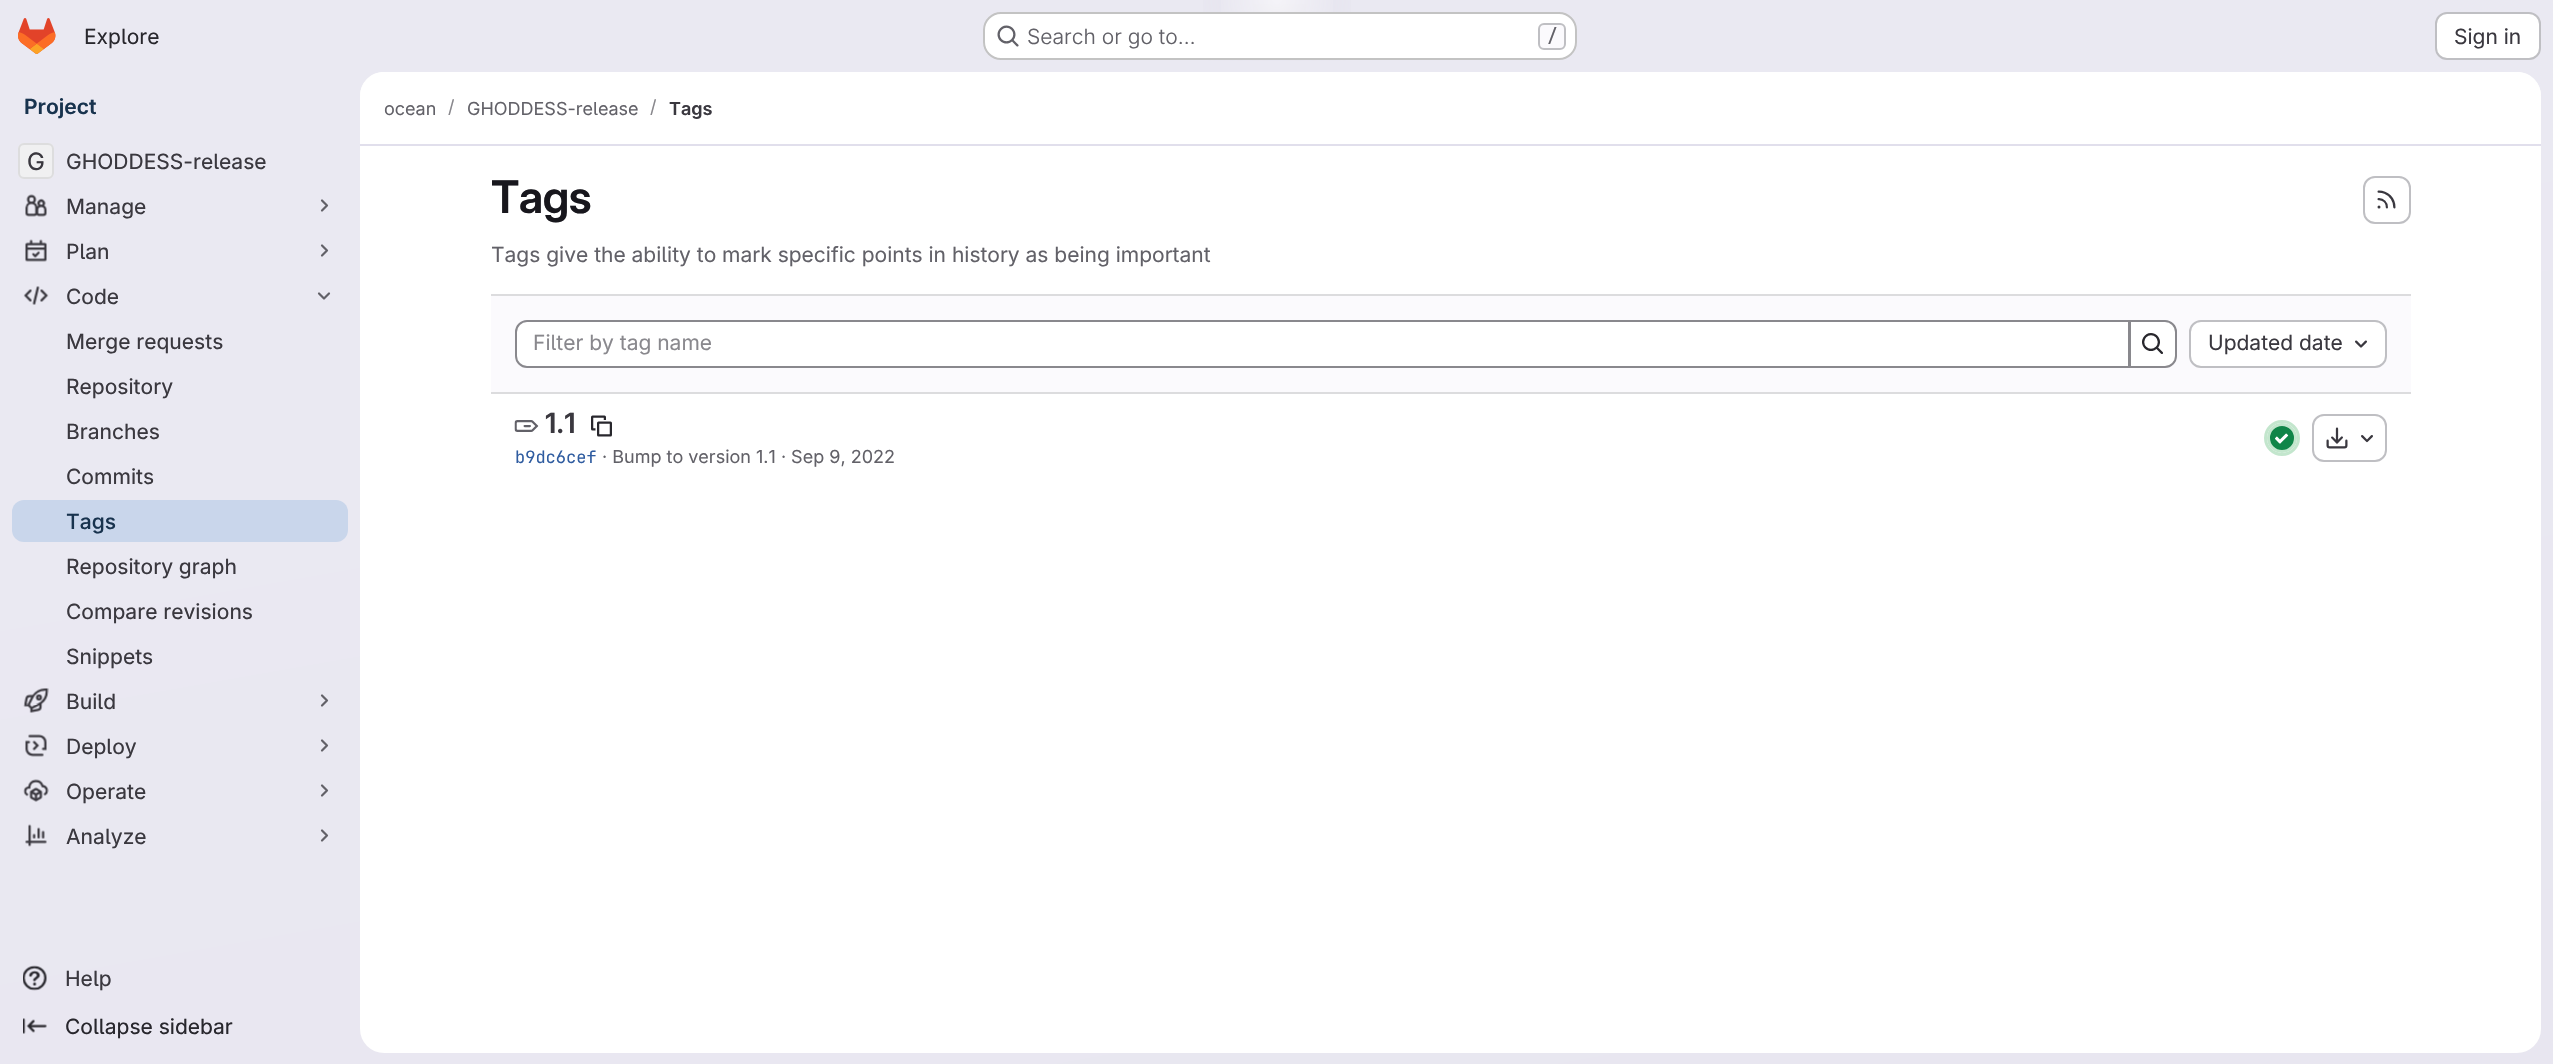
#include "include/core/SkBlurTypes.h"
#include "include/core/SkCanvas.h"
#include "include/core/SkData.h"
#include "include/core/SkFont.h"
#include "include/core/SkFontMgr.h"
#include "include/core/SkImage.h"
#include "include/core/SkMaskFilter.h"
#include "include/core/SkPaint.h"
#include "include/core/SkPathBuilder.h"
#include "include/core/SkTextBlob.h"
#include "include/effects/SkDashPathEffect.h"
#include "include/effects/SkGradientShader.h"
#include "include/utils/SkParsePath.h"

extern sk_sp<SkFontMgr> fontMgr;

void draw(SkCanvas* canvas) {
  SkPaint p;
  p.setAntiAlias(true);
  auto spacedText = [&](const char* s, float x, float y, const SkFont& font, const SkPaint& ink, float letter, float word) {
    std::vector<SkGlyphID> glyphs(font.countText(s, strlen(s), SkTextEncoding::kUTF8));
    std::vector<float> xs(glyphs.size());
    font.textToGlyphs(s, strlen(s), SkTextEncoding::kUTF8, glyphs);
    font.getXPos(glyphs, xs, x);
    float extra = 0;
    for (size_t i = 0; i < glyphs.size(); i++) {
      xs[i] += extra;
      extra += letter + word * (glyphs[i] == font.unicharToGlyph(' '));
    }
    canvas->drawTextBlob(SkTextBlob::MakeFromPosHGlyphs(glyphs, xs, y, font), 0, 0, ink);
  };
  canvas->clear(SK_ColorWHITE);
  {
    const SkColor colors[] = {SkColorSetRGB(232, 230, 240), SkColorSetRGB(234, 233, 242)};
    const float stops[] = {0, 0.7f};
    const SkPoint ends[] = {{1406, 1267}, {1147, -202}};
    p.setShader(SkGradientShader::MakeLinear(ends, colors, stops, 2, SkTileMode::kClamp));
    p.setAlpha(255);
  }
  canvas->drawRect(SkRect::MakeLTRB(0, 0, 2553, 1064), p);
  {
    const SkColor colors[] = {SkColorSetRGB(228, 226, 237), SkColorSetARGB(0, 228, 226, 237)};
    const float stops[] = {0, 0.08f};
    SkMatrix m = SkMatrix::Translate(1277, 0).preScale(1277, 1065);
    p.setShader(SkGradientShader::MakeRadial({0, 0}, 1, colors, stops, 2, SkTileMode::kClamp, 0, &m));
    p.setAlpha(255);
  }
  canvas->drawRect(SkRect::MakeLTRB(1203, 0, 1351, 61), p);
  {
    const SkColor colors[] = {SkColorSetRGB(228, 226, 236), SkColorSetARGB(0, 228, 226, 236)};
    const float stops[] = {0, 0.06f};
    SkMatrix m = SkMatrix::Translate(1277, 0).preScale(1277, 1065);
    p.setShader(SkGradientShader::MakeRadial({0, 0}, 1, colors, stops, 2, SkTileMode::kClamp, 0, &m));
    p.setAlpha(255);
  }
  canvas->drawRect(SkRect::MakeLTRB(1253, 4, 1306, 28), p);
  {
    const SkColor colors[] = {SkColorSetARGB(153, 255, 255, 255), SkColorSetARGB(0, 255, 255, 255)};
    const float stops[] = {0, 0.04f};
    p.setShader(SkGradientShader::MakeRadial({1277, 0}, 1662, colors, stops, 2, SkTileMode::kClamp));
    p.setAlpha(255);
  }
  canvas->drawRect(SkRect::MakeLTRB(1221, 0, 1333, 12), p);
  canvas->drawImageRect(SkImages::DeferredFromEncodedData(SkData::MakeFromFileName("images/1.png")), SkRect::MakeLTRB(18, 18, 56, 54), SkSamplingOptions());
  p.setShader(nullptr);
  p.setColor(SK_ColorWHITE);
  canvas->drawRoundRect(SkRect::MakeLTRB(983, 12, 1577, 60), 18, 18, p);
  p.setStyle(SkPaint::kStroke_Style);
  p.setStrokeWidth(2);
  p.setColor(SkColorSetARGB(61, 5, 5, 6));
  canvas->drawRoundRect(SkRect::MakeLTRB(984, 13, 1576, 59), 17, 17, p);
  canvas->drawImageRect(SkImages::DeferredFromEncodedData(SkData::MakeFromFileName("images/2.png")), SkRect::MakeLTRB(997, 25, 1019, 47), SkSamplingOptions());
  p.setStyle(SkPaint::kFill_Style);
  p.setColor(SkColorSetRGB(251, 250, 253));
  canvas->drawRoundRect(SkRect::MakeLTRB(1539, 24, 1565, 49), 5, 5, p);
  p.setStyle(SkPaint::kStroke_Style);
  p.setColor(SkColorSetRGB(191, 191, 195));
  canvas->drawRoundRect(SkRect::MakeLTRB(1539, 24, 1565, 49), 5, 5, p);
  p.setStyle(SkPaint::kFill_Style);
  p.setColor(SK_ColorWHITE);
  canvas->drawRoundRect(SkRect::MakeLTRB(2436, 13, 2540, 59), 11, 11, p);
  p.setStyle(SkPaint::kStroke_Style);
  p.setColor(SkColorSetRGB(191, 191, 195));
  canvas->drawRoundRect(SkRect::MakeLTRB(2436, 13, 2540, 59), 11, 11, p);
  p.setStyle(SkPaint::kFill_Style);
  p.setColor(SK_ColorWHITE);
  canvas->drawRoundRect(SkRect::MakeLTRB(18, 143, 54, 179), 6, 6, p);
  p.setColor(SkColorSetARGB(61, 191, 191, 195));
  canvas->drawRoundRect(SkRect::MakeLTRB(18, 143, 54, 179), 6, 6, p);
  p.setStyle(SkPaint::kStroke_Style);
  p.setColor(SkColorSetRGB(221, 221, 222));
  canvas->drawRoundRect(SkRect::MakeLTRB(19, 144, 53, 178), 5, 5, p);
  canvas->drawImageRect(SkImages::DeferredFromEncodedData(SkData::MakeFromFileName("images/3.png")), SkRect::MakeLTRB(25, 194, 47, 217), SkSamplingOptions());
  p.setStrokeWidth(2.2f);
  p.setStrokeCap(SkPaint::kRound_Cap);
  p.setStrokeJoin(SkPaint::kRound_Join);
  p.setColor(SkColorSetRGB(98, 97, 104));
  canvas->drawPath(SkPathBuilder().moveTo(322, 200.5f).lineTo(327, 205.5f).lineTo(322, 210.5f).detach(), p);
  canvas->drawImageRect(SkImages::DeferredFromEncodedData(SkData::MakeFromFileName("images/4.png")), SkRect::MakeLTRB(25, 239, 47, 262), SkSamplingOptions());
  canvas->drawPath(SkPathBuilder().moveTo(322, 245.5f).lineTo(327, 250.5f).lineTo(322, 255.5f).detach(), p);
  canvas->drawImageRect(SkImages::DeferredFromEncodedData(SkData::MakeFromFileName("images/5.png")), SkRect::MakeLTRB(23, 286, 49, 305), SkSamplingOptions());
  canvas->drawPath(SkPathBuilder().moveTo(329, 293.5f).lineTo(324, 298.5f).lineTo(319, 293.5f).detach(), p);
  p.setStyle(SkPaint::kFill_Style);
  p.setColor(SkColorSetRGB(201, 214, 235));
  canvas->drawRoundRect(SkRect::MakeLTRB(12, 500, 348, 542), 12, 12, p);
  canvas->drawImageRect(SkImages::DeferredFromEncodedData(SkData::MakeFromFileName("images/6.png")), SkRect::MakeLTRB(23, 688, 49, 713), SkSamplingOptions());
  p.setStyle(SkPaint::kStroke_Style);
  p.setColor(SkColorSetRGB(98, 97, 104));
  canvas->drawPath(SkPathBuilder().moveTo(322, 695.5f).lineTo(327, 700.5f).lineTo(322, 705.5f).detach(), p);
  canvas->drawImageRect(SkImages::DeferredFromEncodedData(SkData::MakeFromFileName("images/7.png")), SkRect::MakeLTRB(25, 734, 47, 757), SkSamplingOptions());
  canvas->drawPath(SkPathBuilder().moveTo(322, 740.5f).lineTo(327, 745.5f).lineTo(322, 750.5f).detach(), p);
  canvas->drawImageRect(SkImages::DeferredFromEncodedData(SkData::MakeFromFileName("images/8.png")), SkRect::MakeLTRB(23, 779, 49, 802), SkSamplingOptions());
  canvas->drawPath(SkPathBuilder().moveTo(322, 785.5f).lineTo(327, 790.5f).lineTo(322, 795.5f).detach(), p);
  canvas->drawImageRect(SkImages::DeferredFromEncodedData(SkData::MakeFromFileName("images/9.png")), SkRect::MakeLTRB(25, 824, 47, 847), SkSamplingOptions());
  canvas->drawPath(SkPathBuilder().moveTo(322, 830.5f).lineTo(327, 835.5f).lineTo(322, 840.5f).detach(), p);
  canvas->drawImageRect(SkImages::DeferredFromEncodedData(SkData::MakeFromFileName("images/10.png")), SkRect::MakeLTRB(23, 965, 47, 991), SkSamplingOptions());
  canvas->drawImageRect(SkImages::DeferredFromEncodedData(SkData::MakeFromFileName("images/11.png")), SkRect::MakeLTRB(23, 1018, 47, 1034), SkSamplingOptions());
  p.setStyle(SkPaint::kFill_Style);
  p.setColor(SK_ColorWHITE);
  canvas->drawRoundRect(SkRect::MakeLTRB(360, 72, 2541, 1053), 24, 24, p);
  canvas->drawPath(SkPathBuilder().moveTo(384, 72).lineTo(2517, 72).cubicTo(2530.5f, 72, 2541, 82.5f, 2541, 96).lineTo(2541, 146).lineTo(360, 146).lineTo(360, 96).cubicTo(360, 82.5f, 370.5f, 72, 384, 72).close().detach(), p);
  p.setColor(SkColorSetRGB(225, 223, 236));
  canvas->drawRect(SkRect::MakeLTRB(360, 144, 2541, 146), p);
  p.setStyle(SkPaint::kStroke_Style);
  p.setStrokeWidth(2);
  p.setStrokeCap(SkPaint::kButt_Cap);
  p.setStrokeJoin(SkPaint::kMiter_Join);
  p.setColor(SkColorSetRGB(191, 191, 195));
  canvas->drawRoundRect(SkRect::MakeLTRB(2364, 177, 2410, 223), 11, 11, p);
  canvas->drawImageRect(SkImages::DeferredFromEncodedData(SkData::MakeFromFileName("images/12.png")), SkRect::MakeLTRB(2377, 190, 2396, 209), SkSamplingOptions());
  p.setStyle(SkPaint::kFill_Style);
  p.setColor(SkColorSetRGB(251, 250, 253));
  canvas->drawRect(SkRect::MakeLTRB(491, 296, 2411, 392), p);
  p.setColor(SkColorSetRGB(220, 220, 222));
  canvas->drawRect(SkRect::MakeLTRB(491, 294, 2411, 296), p);
  canvas->drawRect(SkRect::MakeLTRB(491, 392, 2411, 394), p);
  p.setColor(SK_ColorWHITE);
  canvas->drawPath(SkPathBuilder().moveTo(527, 321).lineTo(2129, 321).lineTo(2129, 367).lineTo(527, 367).cubicTo(521, 367, 516, 362, 516, 356).lineTo(516, 332).cubicTo(516, 326, 521, 321, 527, 321).close().detach(), p);
  p.setStyle(SkPaint::kStroke_Style);
  p.setColor(SkColorSetRGB(137, 136, 141));
  canvas->drawPath(SkPathBuilder().moveTo(527, 321).lineTo(2129, 321).lineTo(2129, 367).lineTo(527, 367).cubicTo(521, 367, 516, 362, 516, 356).lineTo(516, 332).cubicTo(516, 326, 521, 321, 527, 321).close().detach(), p);
  p.setStyle(SkPaint::kFill_Style);
  p.setColor(SK_ColorWHITE);
  canvas->drawPath(SkPathBuilder().moveTo(2130, 321).lineTo(2165, 321).cubicTo(2171, 321, 2176, 326, 2176, 332).lineTo(2176, 356).cubicTo(2176, 362, 2171, 367, 2165, 367).lineTo(2130, 367).close().detach(), p);
  p.setStyle(SkPaint::kStroke_Style);
  p.setColor(SkColorSetRGB(137, 136, 141));
  canvas->drawPath(SkPathBuilder().moveTo(2130, 321).lineTo(2165, 321).cubicTo(2171, 321, 2176, 326, 2176, 332).lineTo(2176, 356).cubicTo(2176, 362, 2171, 367, 2165, 367).lineTo(2130, 367).close().detach(), p);
  canvas->drawImageRect(SkImages::DeferredFromEncodedData(SkData::MakeFromFileName("images/13.png")), SkRect::MakeLTRB(2142, 333, 2163, 354), SkSamplingOptions());
  p.setStyle(SkPaint::kFill_Style);
  p.setColor(SK_ColorWHITE);
  canvas->drawRoundRect(SkRect::MakeLTRB(2190, 321, 2386, 367), 11, 11, p);
  p.setStyle(SkPaint::kStroke_Style);
  p.setColor(SkColorSetRGB(191, 191, 195));
  canvas->drawRoundRect(SkRect::MakeLTRB(2190, 321, 2386, 367), 11, 11, p);
  canvas->drawImageRect(SkImages::DeferredFromEncodedData(SkData::MakeFromFileName("images/14.png")), SkRect::MakeLTRB(2355, 340, 2367, 348), SkSamplingOptions());
  canvas->drawImageRect(SkImages::DeferredFromEncodedData(SkData::MakeFromFileName("images/15.png")), SkRect::MakeLTRB(514, 420, 539, 432), SkSamplingOptions());
  canvas->drawImageRect(SkImages::DeferredFromEncodedData(SkData::MakeFromFileName("images/16.png")), SkRect::MakeLTRB(591, 415, 612, 437), SkSamplingOptions());
  p.setStrokeWidth(3);
  p.setColor(SkColorSetRGB(195, 230, 205));
  canvas->drawCircle(2282, 438, 16.5f, p);
  p.setStyle(SkPaint::kFill_Style);
  p.setColor(SkColorSetRGB(16, 133, 72));
  canvas->drawCircle(2282, 438, 13.5f, p);
  p.setStyle(SkPaint::kStroke_Style);
  p.setColor(SkColorSetRGB(195, 230, 205));
  canvas->drawCircle(2282, 438, 13.5f, p);
  canvas->drawImageRect(SkImages::DeferredFromEncodedData(SkData::MakeFromFileName("images/17.png")), SkRect::MakeLTRB(2275, 433, 2289, 444), SkSamplingOptions());
  p.setStrokeWidth(2);
  p.setColor(SkColorSetRGB(191, 191, 195));
  canvas->drawRoundRect(SkRect::MakeLTRB(2313, 415, 2386, 461), 11, 11, p);
  canvas->drawImageRect(SkImages::DeferredFromEncodedData(SkData::MakeFromFileName("images/18.png")), SkRect::MakeLTRB(2326, 427, 2348, 449), SkSamplingOptions());
  canvas->drawImageRect(SkImages::DeferredFromEncodedData(SkData::MakeFromFileName("images/19.png")), SkRect::MakeLTRB(2361, 435, 2373, 443), SkSamplingOptions());
  SkFont font1(fontMgr->matchFamilyStyle("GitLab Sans", SkFontStyle::Normal()), 21);
  font1.setSubpixel(true);
  p.setStyle(SkPaint::kFill_Style);
  p.setColor(SkColorSetRGB(40, 39, 45));
  canvas->drawString("Explore", 84, 44, font1, p);
  SkFont font2(fontMgr->matchFamilyStyle("GitLab Sans", SkFontStyle(300, SkFontStyle::kNormal_Width, SkFontStyle::kUpright_Slant)), 21);
  font2.setSubpixel(true);
  p.setColor(SkColorSetRGB(98, 97, 104));
  canvas->drawString("Search or go to…", 1027, 44, font2, p);
  SkFont font3(fontMgr->matchFamilyStyle("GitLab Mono", SkFontStyle(500, SkFontStyle::kNormal_Width, SkFontStyle::kUpright_Slant)), 18);
  font3.setSubpixel(true);
  canvas->drawString("/", 1547, 42, font3, p);
  p.setColor(SkColorSetRGB(58, 56, 63));
  canvas->drawString("Sign in", 2454, 44, font1, p);
  SkFont font4(fontMgr->matchFamilyStyle("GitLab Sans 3", SkFontStyle(600, SkFontStyle::kNormal_Width, SkFontStyle::kUpright_Slant)), 21);
  font4.setSubpixel(true);
  p.setColor(SkColorSetRGB(24, 51, 78));
  canvas->drawString("Project", 24, 114, font4, p);
  SkFont font5(fontMgr->matchFamilyStyle("GitLab Sans 3", SkFontStyle::Normal()), 24);
  font5.setSubpixel(true);
  p.setColor(SkColorSetRGB(58, 56, 63));
  canvas->drawString("G", 27, 170, font5, p);
  SkFont font6(fontMgr->matchFamilyStyle("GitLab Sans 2", SkFontStyle::Normal()), 21);
  font6.setSubpixel(true);
  canvas->drawString("GHODDESS-release", 66, 169, font6, p);
  canvas->drawString("Manage", 66, 214, font6, p);
  canvas->drawString("Plan", 66, 259, font6, p);
  canvas->drawString("Code", 66, 304, font6, p);
  canvas->drawString("Merge requests", 66, 349, font6, p);
  canvas->drawString("Repository", 66, 394, font6, p);
  canvas->drawString("Branches", 66, 439, font6, p);
  canvas->drawString("Commits", 66, 484, font6, p);
  SkFont font7(fontMgr->matchFamilyStyle("GitLab Sans", SkFontStyle(500, SkFontStyle::kNormal_Width, SkFontStyle::kUpright_Slant)), 21);
  font7.setSubpixel(true);
  p.setColor(SkColorSetRGB(24, 51, 78));
  canvas->drawString("Tags", 66, 529, font7, p);
  p.setColor(SkColorSetRGB(58, 56, 63));
  canvas->drawString("Repository graph", 66, 574, font6, p);
  canvas->drawString("Compare revisions", 66, 619, font6, p);
  canvas->drawString("Snippets", 66, 664, font6, p);
  canvas->drawString("Build", 66, 709, font6, p);
  canvas->drawString("Deploy", 66, 754, font6, p);
  canvas->drawString("Operate", 66, 799, font6, p);
  canvas->drawString("Analyze", 66, 844, font6, p);
  canvas->drawString("Help", 65, 986, font6, p);
  p.setColor(SkColorSetRGB(40, 39, 45));
  canvas->drawString("Collapse sidebar", 65, 1034, font6, p);
  SkFont font8(fontMgr->matchFamilyStyle("GitLab Sans", SkFontStyle::Normal()), 18);
  font8.setSubpixel(true);
  p.setColor(SkColorSetRGB(98, 97, 104));
  canvas->drawString("ocean", 384, 115, font8, p);
  p.setColor(SkColorSetRGB(137, 136, 141));
  canvas->drawString("/", 448, 113, font8, p);
  p.setColor(SkColorSetRGB(98, 97, 104));
  canvas->drawString("GHODDESS-release", 467, 115, font8, p);
  p.setColor(SkColorSetRGB(137, 136, 141));
  canvas->drawString("/", 650, 113, font8, p);
  SkFont font9(fontMgr->matchFamilyStyle("GitLab Sans 3", SkFontStyle(600, SkFontStyle::kNormal_Width, SkFontStyle::kUpright_Slant)), 18);
  font9.setSubpixel(true);
  p.setColor(SkColorSetRGB(58, 56, 63));
  canvas->drawString("Tags", 669, 115, font9, p);
  SkFont font10(fontMgr->matchFamilyStyle("GitLab Sans", SkFontStyle(600, SkFontStyle::kNormal_Width, SkFontStyle::kUpright_Slant)), 45);
  font10.setSubpixel(true);
  p.setColor(SkColorSetRGB(24, 23, 29));
  spacedText("Tags", 491, 213, font10, p, -0.5f, 0);
  p.setColor(SkColorSetRGB(98, 97, 104));
  canvas->drawString("Tags give the ability to mark specific points in history as being important", 491, 262, font1, p);
  p.setColor(SkColorSetRGB(137, 136, 141));
  canvas->drawString("Filter by tag name", 533, 350, font1, p);
  p.setColor(SkColorSetRGB(58, 56, 63));
  canvas->drawString("Updated date", 2208, 350, font1, p);
  SkFont font11(fontMgr->matchFamilyStyle("GitLab Sans 2", SkFontStyle(600, SkFontStyle::kNormal_Width, SkFontStyle::kUpright_Slant)), 28);
  font11.setSubpixel(true);
  canvas->drawString("1.1", 545, 433, font11, p);
  SkFont font12(fontMgr->matchFamilyStyle("GitLab Mono", SkFontStyle::Normal()), 17);
  font12.setSubpixel(true);
  p.setColor(SkColorSetRGB(47, 92, 160));
  canvas->drawString("b9dc6cef", 515, 463, font12, p);
  p.setColor(SkColorSetRGB(98, 97, 104));
  canvas->drawString("· Bump to version 1.1 · Sep 9, 2022", 602, 463, font8, p);
}
